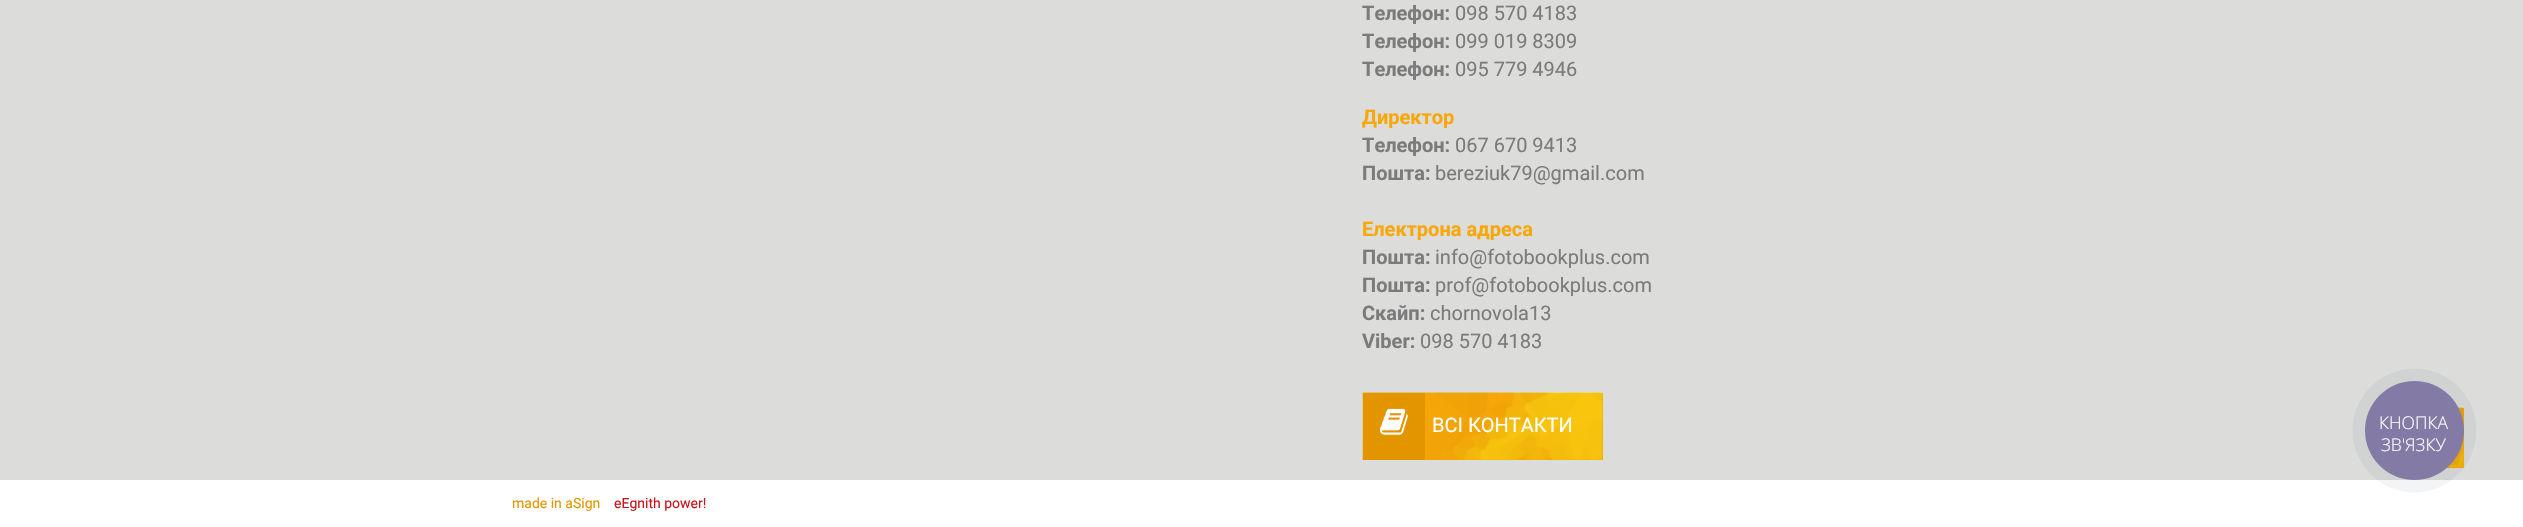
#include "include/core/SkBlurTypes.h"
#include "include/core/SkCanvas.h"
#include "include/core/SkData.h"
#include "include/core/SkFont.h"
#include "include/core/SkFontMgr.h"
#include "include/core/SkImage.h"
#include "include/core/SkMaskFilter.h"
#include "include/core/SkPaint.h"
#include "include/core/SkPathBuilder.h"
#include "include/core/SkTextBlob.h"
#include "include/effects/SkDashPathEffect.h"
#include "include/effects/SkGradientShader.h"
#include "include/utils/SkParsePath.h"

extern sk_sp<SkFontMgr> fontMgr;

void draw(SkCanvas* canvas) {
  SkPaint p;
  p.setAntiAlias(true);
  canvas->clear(SK_ColorWHITE);
  p.setColor(SkColorSetRGB(220, 220, 219));
  canvas->drawRect(SkRect::MakeLTRB(0, 0, 2523, 480), p);
  p.setColor(SkColorSetRGB(247, 167, 6));
  canvas->drawRect(SkRect::MakeLTRB(1425, 393, 1603, 460), p);
  canvas->drawImageRect(SkImages::DeferredFromEncodedData(SkData::MakeFromFileName("images/1.png")), SkRect::MakeLTRB(1362, 392, 1603, 460), SkSamplingOptions());
  p.setColor(SkColorSetRGB(227, 149, 0));
  canvas->drawRect(SkRect::MakeLTRB(1363, 393, 1425, 460), p);
  canvas->drawImageRect(SkImages::DeferredFromEncodedData(SkData::MakeFromFileName("images/2.png")), SkRect::MakeLTRB(1380, 408, 1408, 435), SkSamplingOptions());
  p.setColor(SkColorSetRGB(247, 167, 6));
  canvas->drawRect(SkRect::MakeLTRB(2446, 408, 2464, 468), p);
  canvas->drawImageRect(SkImages::DeferredFromEncodedData(SkData::MakeFromFileName("images/3.png")), SkRect::MakeLTRB(2446, 407, 2464, 468), SkSamplingOptions());
  p.setColor(SkColorSetARGB(15, 42, 64, 93));
  canvas->drawCircle(2414.5f, 430.5f, 62, p);
  p.setColor(SkColorSetRGB(131, 123, 166));
  canvas->drawCircle(2414.5f, 430.5f, 49.5f, p);
  SkFont font1(fontMgr->matchFamilyStyle("Roboto", SkFontStyle::Bold()), 20);
  font1.setSubpixel(true);
  p.setColor(SkColorSetRGB(123, 123, 123));
  canvas->drawString("Телефон:", 1362, 20, font1, p);
  SkFont font2(fontMgr->matchFamilyStyle("Roboto", SkFontStyle::Normal()), 20);
  font2.setSubpixel(true);
  canvas->drawString("098 570 4183", 1455, 20, font2, p);
  canvas->drawString("Телефон:", 1362, 48, font1, p);
  canvas->drawString("099 019 8309", 1455, 48, font2, p);
  canvas->drawString("Телефон:", 1362, 76, font1, p);
  canvas->drawString("095 779 4946", 1455, 76, font2, p);
  p.setColor(SkColorSetRGB(247, 167, 6));
  canvas->drawString("Директор", 1362, 124, font1, p);
  p.setColor(SkColorSetRGB(123, 123, 123));
  canvas->drawString("Телефон:", 1362, 152, font1, p);
  canvas->drawString("067 670 9413", 1455, 152, font2, p);
  canvas->drawString("Пошта:", 1362, 180, font1, p);
  canvas->drawString("bereziuk79@gmail.com", 1435, 180, font2, p);
  p.setColor(SkColorSetRGB(247, 167, 6));
  canvas->drawString("Електрона адреса", 1362, 236, font1, p);
  p.setColor(SkColorSetRGB(123, 123, 123));
  canvas->drawString("Пошта:", 1362, 264, font1, p);
  canvas->drawString("info@fotobookplus.com", 1435, 264, font2, p);
  canvas->drawString("Пошта:", 1362, 292, font1, p);
  canvas->drawString("prof@fotobookplus.com", 1435, 292, font2, p);
  canvas->drawString("Скайп:", 1362, 320, font1, p);
  canvas->drawString("chornovola13", 1430, 320, font2, p);
  canvas->drawString("Viber:", 1362, 348, font1, p);
  canvas->drawString("098 570 4183", 1420, 348, font2, p);
  p.setColor(SK_ColorWHITE);
  canvas->drawString("ВСІ КОНТАКТИ", 1432, 432, font2, p);
  SkFont font3(fontMgr->matchFamilyStyle("Open Sans", SkFontStyle(300, SkFontStyle::kNormal_Width, SkFontStyle::kUpright_Slant)), 17.5f);
  font3.setSubpixel(true);
  canvas->drawString("КНОПКА", 2379, 429, font3, p);
  canvas->drawString("ЗВ'ЯЗКУ", 2381, 451, font3, p);
  SkFont font4(fontMgr->matchFamilyStyle("Roboto", SkFontStyle::Normal()), 14);
  font4.setSubpixel(true);
  p.setColor(SkColorSetRGB(227, 149, 0));
  canvas->drawString("made in aSign", 512, 508, font4, p);
  p.setColor(SkColorSetRGB(202, 17, 23));
  canvas->drawString("eEgnith power!", 614, 508, font4, p);
}
